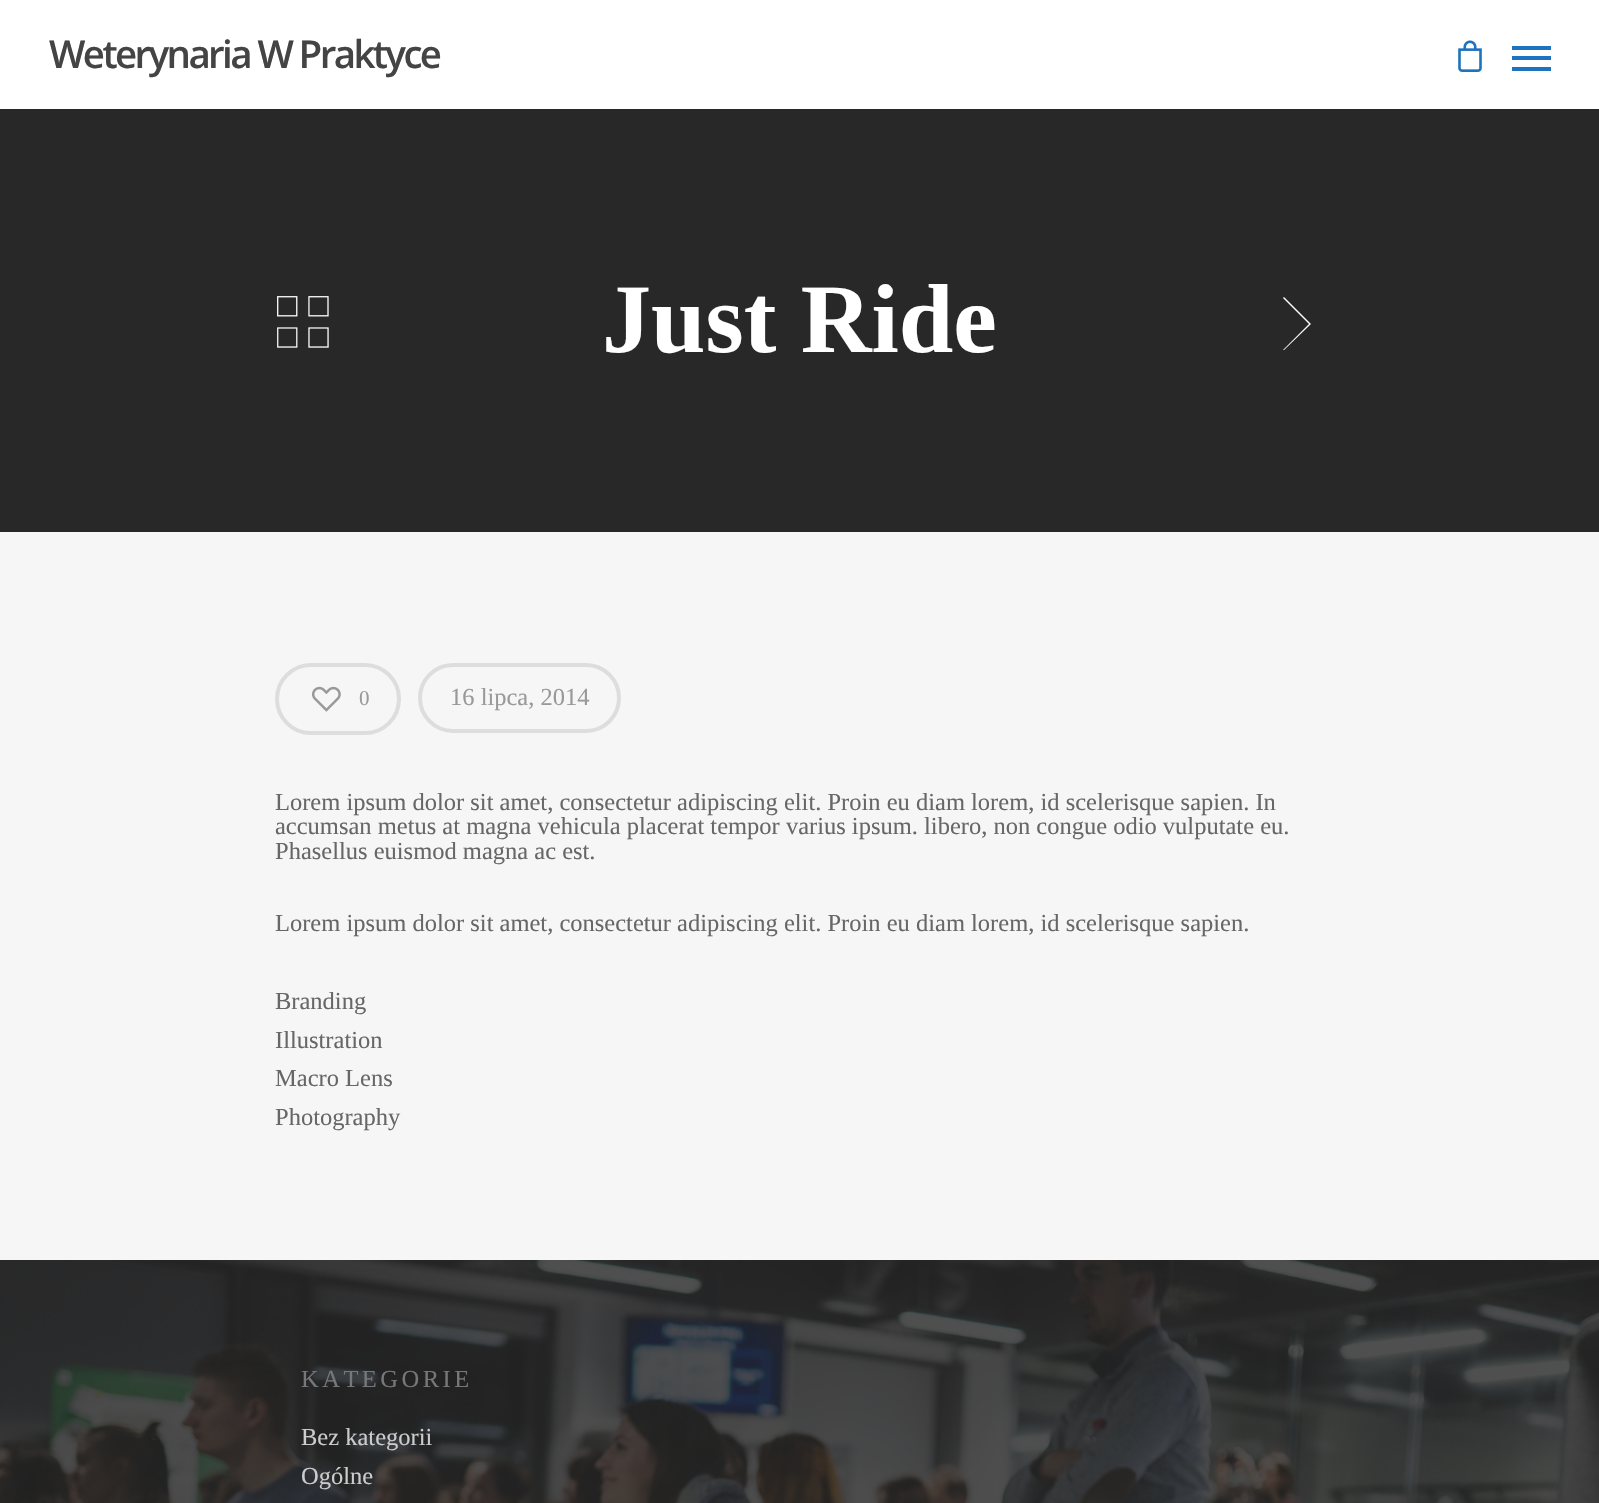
#include "include/core/SkBlurTypes.h"
#include "include/core/SkCanvas.h"
#include "include/core/SkData.h"
#include "include/core/SkFont.h"
#include "include/core/SkFontMgr.h"
#include "include/core/SkImage.h"
#include "include/core/SkMaskFilter.h"
#include "include/core/SkPaint.h"
#include "include/core/SkPathBuilder.h"
#include "include/core/SkTextBlob.h"
#include "include/effects/SkDashPathEffect.h"
#include "include/effects/SkGradientShader.h"
#include "include/utils/SkParsePath.h"

extern sk_sp<SkFontMgr> fontMgr;

void draw(SkCanvas* canvas) {
  SkPaint p;
  p.setAntiAlias(true);
  auto spacedText = [&](const char* s, float x, float y, const SkFont& font, const SkPaint& ink, float letter, float word) {
    std::vector<SkGlyphID> glyphs(font.countText(s, strlen(s), SkTextEncoding::kUTF8));
    std::vector<float> xs(glyphs.size());
    font.textToGlyphs(s, strlen(s), SkTextEncoding::kUTF8, glyphs);
    font.getXPos(glyphs, xs, x);
    float extra = 0;
    for (size_t i = 0; i < glyphs.size(); i++) {
      xs[i] += extra;
      extra += letter + word * (glyphs[i] == font.unicharToGlyph(' '));
    }
    canvas->drawTextBlob(SkTextBlob::MakeFromPosHGlyphs(glyphs, xs, y, font), 0, 0, ink);
  };
  canvas->clear(SkColorSetRGB(40, 40, 40));
  p.setColor(SK_ColorWHITE);
  canvas->drawRect(SkRect::MakeLTRB(0, 0, 1599, 109), p);
  canvas->drawImageRect(SkImages::DeferredFromEncodedData(SkData::MakeFromFileName("images/1.png")), SkRect::MakeLTRB(1458, 40, 1482, 72), SkSamplingOptions());
  p.setColor(SkColorSetRGB(30, 115, 190));
  canvas->drawRect(SkRect::MakeLTRB(1512, 46, 1551, 50), p);
  canvas->drawRect(SkRect::MakeLTRB(1512, 67, 1551, 71), p);
  canvas->drawRect(SkRect::MakeLTRB(1512, 56, 1551, 60), p);
  canvas->drawImageRect(SkImages::DeferredFromEncodedData(SkData::MakeFromFileName("images/2.png")), SkRect::MakeLTRB(277, 296, 329, 348), SkSamplingOptions());
  p.setColor(SK_ColorWHITE);
  canvas->drawPath(SkPathBuilder().moveTo(1283, 298).lineTo(1284, 297).lineTo(1311, 324).lineTo(1284, 350).lineTo(1283, 350).lineTo(1309, 324).close().detach(), p);
  p.setColor(SkColorSetRGB(246, 246, 246));
  canvas->drawRect(SkRect::MakeLTRB(0, 532, 1599, 1260), p);
  p.setStyle(SkPaint::kStroke_Style);
  p.setStrokeWidth(4);
  p.setColor(SkColorSetRGB(221, 221, 221));
  canvas->drawRoundRect(SkRect::MakeLTRB(277, 665, 399, 733), 34, 34, p);
  canvas->drawImageRect(SkImages::DeferredFromEncodedData(SkData::MakeFromFileName("images/3.png")), SkRect::MakeLTRB(312, 686, 341, 712), SkSamplingOptions());
  canvas->drawRoundRect(SkRect::MakeLTRB(420, 665, 619, 731), 33, 33, p);
  canvas->drawImageRect(SkImages::DeferredFromEncodedData(SkData::MakeFromFileName("images/4.png")), SkRect::MakeLTRB(0, 1260, 1599, 1503), SkSamplingOptions());
  SkFont font1(fontMgr->matchFamilyStyle("Open Sans", SkFontStyle(600, SkFontStyle::kNormal_Width, SkFontStyle::kUpright_Slant)), 38.5f);
  font1.setSubpixel(true);
  p.setStyle(SkPaint::kFill_Style);
  p.setColor(SkColorSetRGB(68, 68, 68));
  spacedText("Weterynaria W Praktyce", 49, 68, font1, p, -2.6f, 0);
  SkFont font2(fontMgr->matchFamilyStyle("Liberation Serif", SkFontStyle::Bold()), 98);
  font2.setSubpixel(true);
  p.setColor(SK_ColorWHITE);
  canvas->drawString("Just Ride", 602, 352, font2, p);
  SkFont font3(fontMgr->matchFamilyStyle("Liberation Serif", SkFontStyle::Normal()), 21);
  font3.setSubpixel(true);
  p.setColor(SkColorSetRGB(153, 153, 153));
  canvas->drawString("0", 359, 705, font3, p);
  SkFont font4(fontMgr->matchFamilyStyle("Liberation Serif", SkFontStyle::Normal()), 24.5f);
  font4.setSubpixel(true);
  canvas->drawString("16 lipca, 2014", 450, 705, font4, p);
  p.setColor(SkColorSetRGB(103, 103, 103));
  canvas->drawString("Lorem ipsum dolor sit amet, consectetur adipiscing elit. Proin eu diam lorem, id scelerisque sapien. In", 275, 810, font4, p);
  canvas->drawString("accumsan metus at magna vehicula placerat tempor varius ipsum. libero, non congue odio vulputate eu.", 275, 834, font4, p);
  canvas->drawString("Phasellus euismod magna ac est.", 275, 859, font4, p);
  canvas->drawString("Lorem ipsum dolor sit amet, consectetur adipiscing elit. Proin eu diam lorem, id scelerisque sapien.", 275, 931, font4, p);
  canvas->drawString("Branding", 275, 1009, font4, p);
  canvas->drawString("Illustration", 275, 1048, font4, p);
  canvas->drawString("Macro Lens", 275, 1086, font4, p);
  canvas->drawString("Photography", 275, 1125, font4, p);
  p.setColor(SkColorSetRGB(119, 119, 119));
  spacedText("KATEGORIE", 301, 1387, font4, p, 3.5f, 0);
  p.setColor(SkColorSetRGB(204, 204, 204));
  canvas->drawString("Bez kategorii", 301, 1445, font4, p);
  canvas->drawString("Ogólne", 301, 1484, font4, p);
}
